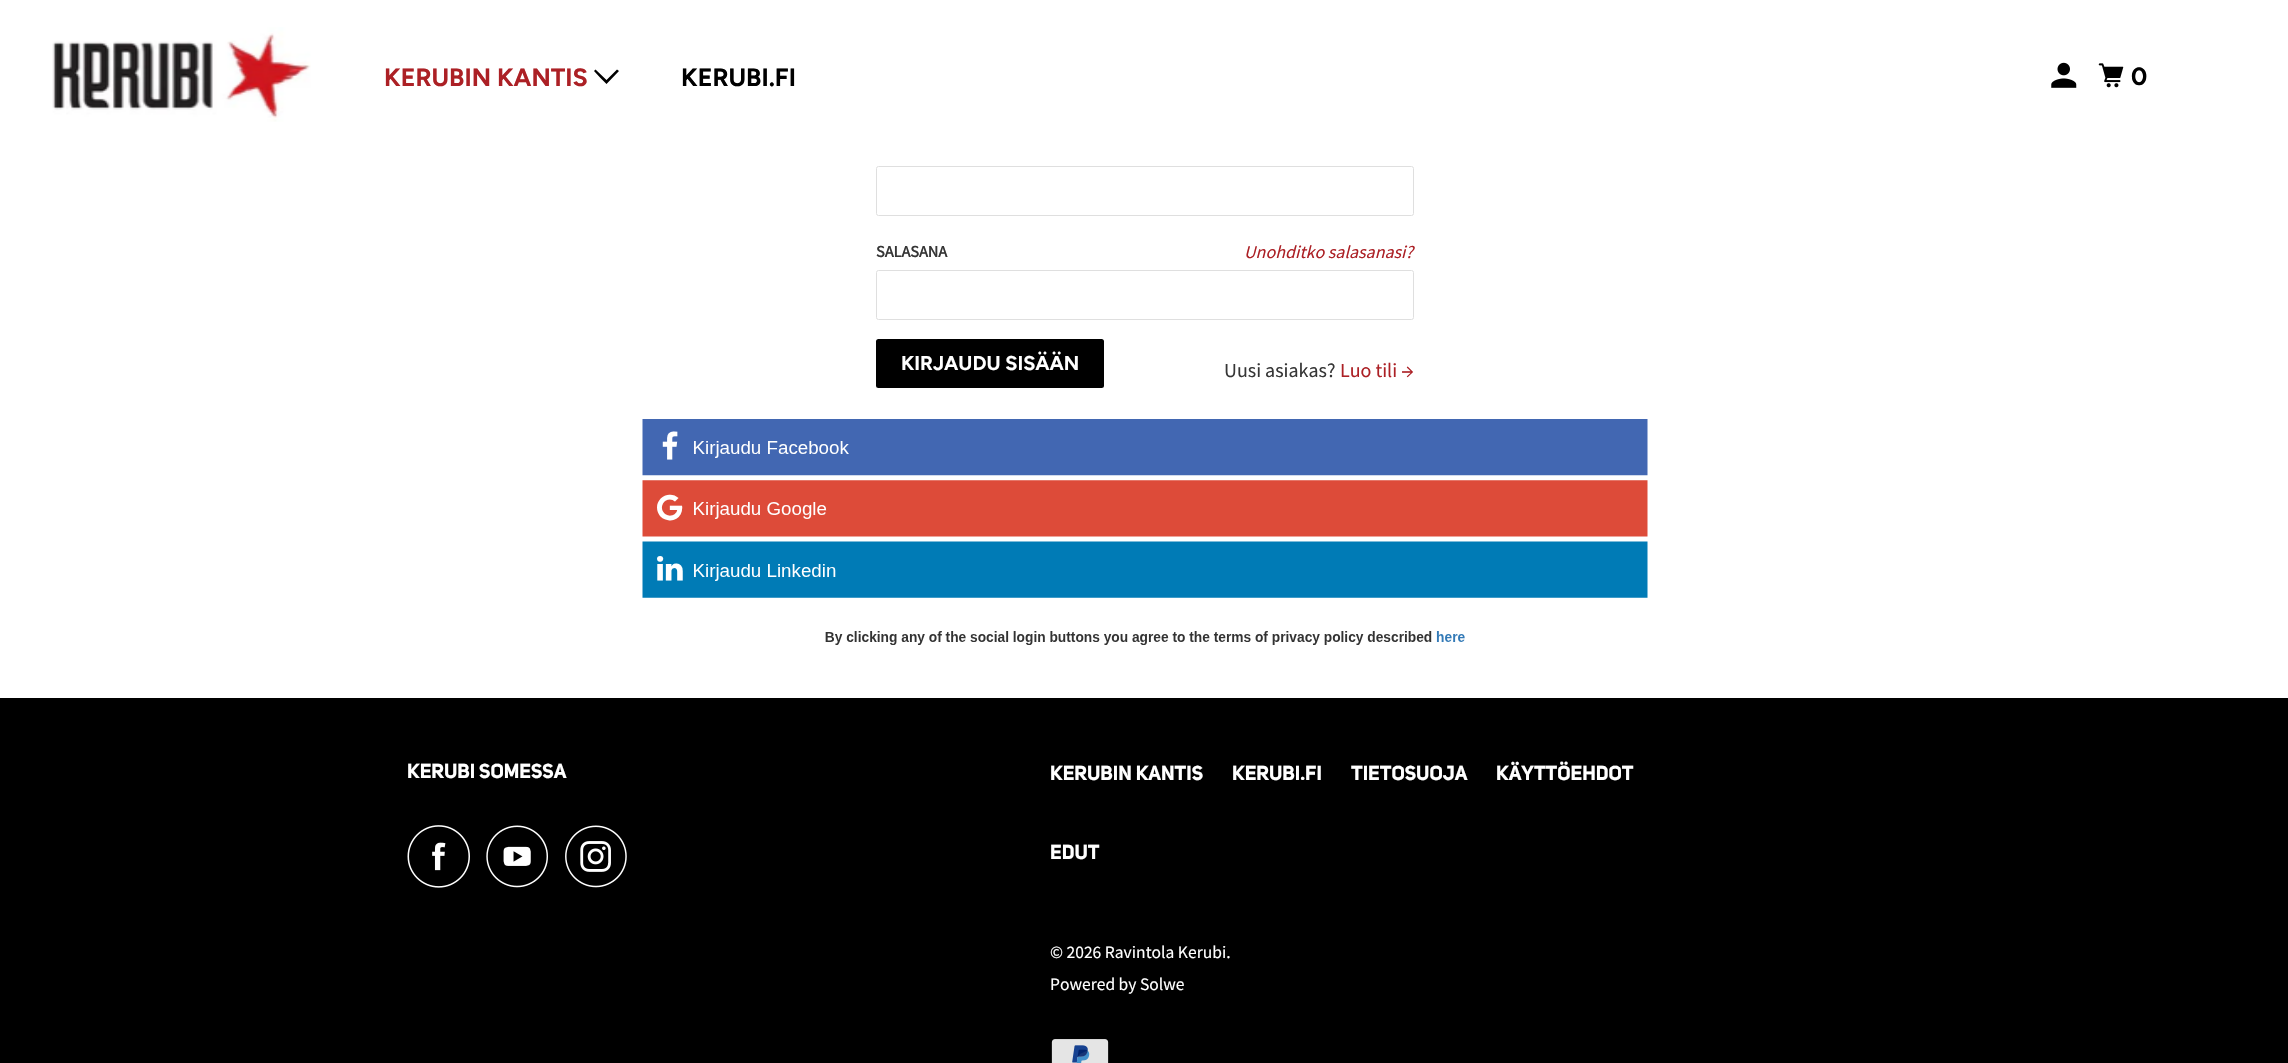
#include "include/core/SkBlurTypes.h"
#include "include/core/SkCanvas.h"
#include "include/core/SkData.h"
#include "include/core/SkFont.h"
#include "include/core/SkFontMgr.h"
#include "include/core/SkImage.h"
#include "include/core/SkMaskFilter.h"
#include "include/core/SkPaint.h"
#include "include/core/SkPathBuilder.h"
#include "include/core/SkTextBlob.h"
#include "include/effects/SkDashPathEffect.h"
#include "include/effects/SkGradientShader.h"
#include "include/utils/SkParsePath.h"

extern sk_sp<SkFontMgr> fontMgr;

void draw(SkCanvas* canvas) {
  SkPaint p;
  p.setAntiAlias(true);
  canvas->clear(SK_ColorWHITE);
  canvas->drawImageRect(SkImages::DeferredFromEncodedData(SkData::MakeFromFileName("images/1.png")), SkRect::MakeLTRB(52, 27, 311, 122), SkSamplingOptions());
  p.setColor(SK_ColorBLACK);
  canvas->drawPath(SkPathBuilder().moveTo(600, 77.5f).lineTo(594, 71).lineTo(595.5f, 69.5f).lineTo(606.5f, 80).lineTo(617, 69.5f).lineTo(619, 71).lineTo(606.5f, 84).close().detach(), p);
  canvas->drawImageRect(SkImages::DeferredFromEncodedData(SkData::MakeFromFileName("images/2.png")), SkRect::MakeLTRB(2051, 62, 2077, 88), SkSamplingOptions());
  canvas->drawImageRect(SkImages::DeferredFromEncodedData(SkData::MakeFromFileName("images/3.png")), SkRect::MakeLTRB(2098, 63, 2124, 88), SkSamplingOptions());
  p.setStyle(SkPaint::kStroke_Style);
  p.setStrokeWidth(1);
  p.setColor(SkColorSetRGB(223, 223, 223));
  canvas->drawRoundRect(SkRect::MakeLTRB(876.5f, 166.5f, 1413.5f, 215.5f), 2, 2, p);
  canvas->drawRoundRect(SkRect::MakeLTRB(876.5f, 270.5f, 1413.5f, 319.5f), 2, 2, p);
  p.setStyle(SkPaint::kFill_Style);
  p.setColor(SK_ColorBLACK);
  canvas->drawRoundRect(SkRect::MakeLTRB(876, 339, 1104, 388), 2.5f, 2.5f, p);
  canvas->drawImageRect(SkImages::DeferredFromEncodedData(SkData::MakeFromFileName("images/4.png")), SkRect::MakeLTRB(642, 419, 1648, 645), SkSamplingOptions());
  canvas->drawRect(SkRect::MakeLTRB(0, 698, 2288, 1063), p);
  canvas->drawImageRect(SkImages::DeferredFromEncodedData(SkData::MakeFromFileName("images/5.png")), SkRect::MakeLTRB(407, 825, 470, 888), SkSamplingOptions());
  canvas->drawImageRect(SkImages::DeferredFromEncodedData(SkData::MakeFromFileName("images/6.png")), SkRect::MakeLTRB(486, 825, 548, 888), SkSamplingOptions());
  canvas->drawImageRect(SkImages::DeferredFromEncodedData(SkData::MakeFromFileName("images/7.png")), SkRect::MakeLTRB(565, 825, 627, 888), SkSamplingOptions());
  canvas->drawImageRect(SkImages::DeferredFromEncodedData(SkData::MakeFromFileName("images/8.png")), SkRect::MakeLTRB(1051, 1039, 1109, 1063), SkSamplingOptions());
  SkFont font1(fontMgr->matchFamilyStyle("Figtree", SkFontStyle::Bold()), 25);
  font1.setSubpixel(true);
  p.setColor(SkColorSetRGB(172, 32, 37));
  canvas->drawString("KERUBIN KANTIS", 384, 86, font1, p);
  p.setColor(SK_ColorBLACK);
  canvas->drawString("KERUBI.FI", 681, 86, font1, p);
  canvas->drawString("0", 2131, 85, font1, p);
  SkFont font2(fontMgr->matchFamilyStyle("Source Sans Pro", SkFontStyle::Bold()), 16.25f);
  font2.setSubpixel(true);
  p.setColor(SkColorSetRGB(54, 54, 54));
  canvas->drawString("SALASANA", 876, 257, font2, p);
  SkFont font3(fontMgr->matchFamilyStyle("Source Sans Pro", SkFontStyle::Italic()), 18);
  font3.setSubpixel(true);
  p.setColor(SkColorSetRGB(172, 32, 37));
  canvas->drawString("Unohditko salasanasi?", 1244, 258, font3, p);
  SkFont font4(fontMgr->matchFamilyStyle("Figtree", SkFontStyle::Bold()), 20);
  font4.setSubpixel(true);
  p.setColor(SK_ColorWHITE);
  canvas->drawString("KIRJAUDU SISÄÄN", 901, 370, font4, p);
  SkFont font5(fontMgr->matchFamilyStyle("Source Sans Pro", SkFontStyle::Normal()), 20);
  font5.setSubpixel(true);
  p.setColor(SkColorSetRGB(54, 54, 54));
  canvas->drawString("Uusi asiakas?", 1224, 377, font5, p);
  p.setColor(SkColorSetRGB(172, 32, 37));
  canvas->drawString("Luo tili →", 1340, 377, font5, p);
  SkFont font6(fontMgr->matchFamilyStyle("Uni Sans", SkFontStyle::Bold()), 20);
  font6.setSubpixel(true);
  p.setColor(SK_ColorWHITE);
  canvas->drawString("KERUBI SOMESSA", 407, 778, font6, p);
  canvas->drawString("KERUBIN KANTIS", 1050, 780, font6, p);
  canvas->drawString("KERUBI.FI", 1232, 780, font6, p);
  canvas->drawString("TIETOSUOJA", 1351, 780, font6, p);
  canvas->drawString("KÄYTTÖEHDOT", 1496, 780, font6, p);
  canvas->drawString("EDUT", 1050, 859, font6, p);
  SkFont font7(fontMgr->matchFamilyStyle("Source Sans Pro", SkFontStyle::Normal()), 17.5f);
  font7.setSubpixel(true);
  canvas->drawString("© 2026 Ravintola Kerubi.", 1050, 958, font7, p);
  canvas->drawString("Powered by Solwe", 1050, 990, font7, p);
}
